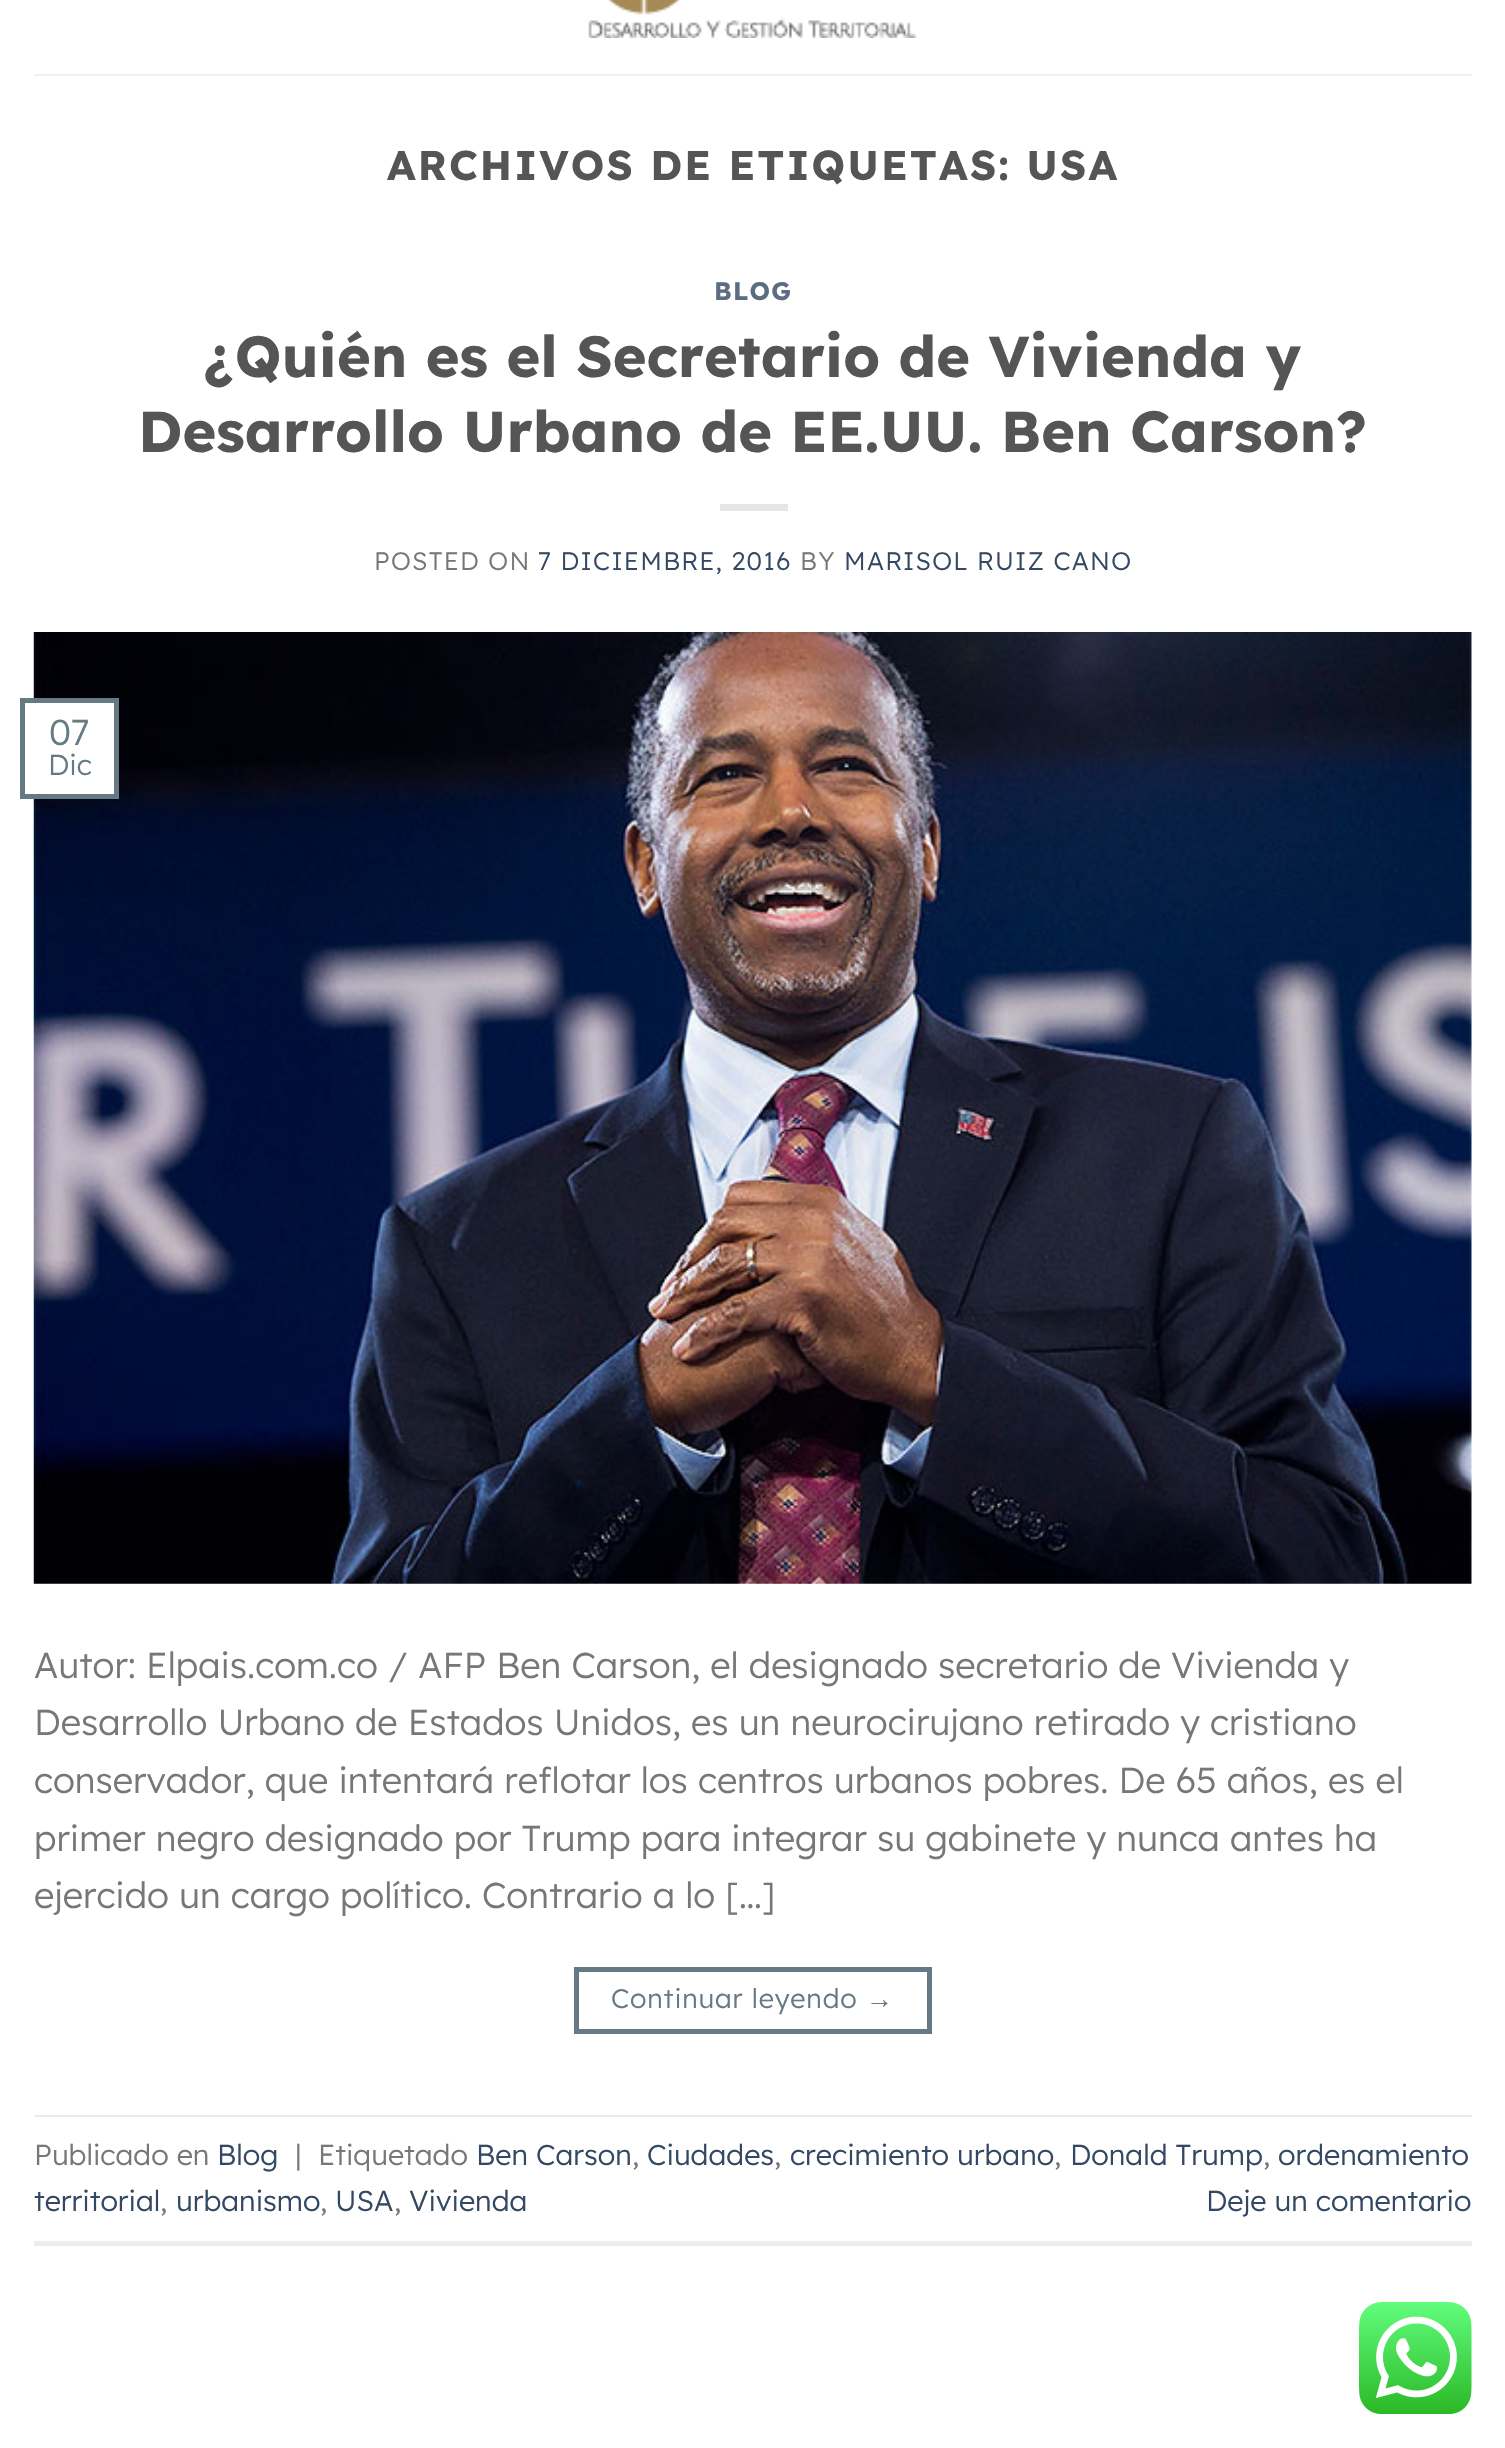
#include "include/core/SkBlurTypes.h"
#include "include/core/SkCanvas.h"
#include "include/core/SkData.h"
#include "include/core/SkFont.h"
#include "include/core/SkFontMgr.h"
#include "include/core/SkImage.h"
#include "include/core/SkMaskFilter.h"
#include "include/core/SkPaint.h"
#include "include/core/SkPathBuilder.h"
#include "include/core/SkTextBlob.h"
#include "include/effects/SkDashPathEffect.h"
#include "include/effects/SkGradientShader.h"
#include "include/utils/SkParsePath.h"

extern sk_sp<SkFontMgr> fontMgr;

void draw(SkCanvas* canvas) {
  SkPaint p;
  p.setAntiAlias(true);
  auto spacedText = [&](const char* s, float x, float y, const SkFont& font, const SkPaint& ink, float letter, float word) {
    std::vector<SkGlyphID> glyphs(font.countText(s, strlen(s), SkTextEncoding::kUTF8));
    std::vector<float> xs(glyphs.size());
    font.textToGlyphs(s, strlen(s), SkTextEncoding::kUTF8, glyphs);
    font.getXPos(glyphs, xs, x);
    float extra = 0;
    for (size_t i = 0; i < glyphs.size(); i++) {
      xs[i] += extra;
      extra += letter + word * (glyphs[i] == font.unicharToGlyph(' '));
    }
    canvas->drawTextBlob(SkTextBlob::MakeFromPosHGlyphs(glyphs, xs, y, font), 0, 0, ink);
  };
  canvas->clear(SK_ColorWHITE);
  canvas->drawImageRect(SkImages::DeferredFromEncodedData(SkData::MakeFromFileName("images/1.png")), SkRect::MakeLTRB(588, 0, 917, 38), SkSamplingOptions());
  p.setColor(SkColorSetRGB(241, 241, 241));
  canvas->drawRect(SkRect::MakeLTRB(34, 74, 1472, 76), p);
  p.setColor(SkColorSetRGB(230, 230, 230));
  canvas->drawRect(SkRect::MakeLTRB(720, 504, 788, 511), p);
  canvas->drawImageRect(SkImages::DeferredFromEncodedData(SkData::MakeFromFileName("images/2.png")), SkRect::MakeLTRB(33, 632, 1472, 1584), SkSamplingOptions());
  p.setColor(SK_ColorWHITE);
  canvas->drawRect(SkRect::MakeLTRB(33, 703, 114, 794), p);
  p.setStyle(SkPaint::kStroke_Style);
  p.setStrokeWidth(5);
  p.setColor(SkColorSetRGB(101, 122, 132));
  canvas->drawRect(SkRect::MakeLTRB(22.5f, 700.5f, 116.5f, 796.5f), p);
  canvas->drawRect(SkRect::MakeLTRB(576.5f, 1969.5f, 929.5f, 2031.5f), p);
  p.setStyle(SkPaint::kFill_Style);
  p.setColor(SkColorSetRGB(236, 236, 236));
  canvas->drawRect(SkRect::MakeLTRB(34, 2115, 1472, 2117), p);
  canvas->drawRect(SkRect::MakeLTRB(34, 2241, 1472, 2246), p);
  canvas->drawImageRect(SkImages::DeferredFromEncodedData(SkData::MakeFromFileName("images/3.png")), SkRect::MakeLTRB(1359, 2302, 1472, 2414), SkSamplingOptions());
  SkFont font1(fontMgr->matchFamilyStyle("Lexend", SkFontStyle::Bold()), 41.4f);
  font1.setSubpixel(true);
  p.setColor(SkColorSetRGB(85, 85, 85));
  spacedText("ARCHIVOS DE ETIQUETAS: USA", 387, 180, font1, p, 2.1f, 0);
  SkFont font2(fontMgr->matchFamilyStyle("Lexend", SkFontStyle::Bold()), 25.25f);
  font2.setSubpixel(true);
  p.setColor(SkColorSetRGB(92, 109, 129));
  spacedText("BLOG", 714, 300, font2, p, 1.25f, 0);
  SkFont font3(fontMgr->matchFamilyStyle("Lexend", SkFontStyle::Bold()), 57.6f);
  font3.setSubpixel(true);
  p.setColor(SkColorSetRGB(85, 85, 85));
  canvas->drawString("¿Quién es el Secretario de Vivienda y", 204, 377, font3, p);
  canvas->drawString("Desarrollo Urbano de EE.UU. Ben Carson?", 138, 452, font3, p);
  SkFont font4(fontMgr->matchFamilyStyle("Lexend", SkFontStyle(300, SkFontStyle::kNormal_Width, SkFontStyle::kUpright_Slant)), 25.25f);
  font4.setSubpixel(true);
  p.setColor(SkColorSetRGB(119, 119, 119));
  spacedText("POSTED ON", 374, 570, font4, p, 1.25f, 0);
  p.setColor(SkColorSetRGB(51, 72, 98));
  spacedText("7 DICIEMBRE, 2016", 538, 570, font4, p, 1.25f, 0);
  p.setColor(SkColorSetRGB(119, 119, 119));
  spacedText("BY", 800, 570, font4, p, 1.25f, 0);
  p.setColor(SkColorSetRGB(51, 72, 98));
  spacedText("MARISOL RUIZ CANO", 844, 570, font4, p, 1.25f, 0);
  SkFont font5(fontMgr->matchFamilyStyle("Lexend", SkFontStyle(300, SkFontStyle::kNormal_Width, SkFontStyle::kUpright_Slant)), 36);
  font5.setSubpixel(true);
  p.setColor(SkColorSetRGB(101, 122, 132));
  canvas->drawString("07", 49, 745, font5, p);
  SkFont font6(fontMgr->matchFamilyStyle("Lexend", SkFontStyle(300, SkFontStyle::kNormal_Width, SkFontStyle::kUpright_Slant)), 28.75f);
  font6.setSubpixel(true);
  canvas->drawString("Dic", 48, 775, font6, p);
  p.setColor(SkColorSetRGB(119, 119, 119));
  canvas->drawString("Autor: Elpais.com.co / AFP Ben Carson, el designado secretario de Vivienda y", 34, 1678, font5, p);
  canvas->drawString("Desarrollo Urbano de Estados Unidos, es un neurocirujano retirado y cristiano", 34, 1735, font5, p);
  canvas->drawString("conservador, que intentará reflotar los centros urbanos pobres. De 65 años, es el", 34, 1793, font5, p);
  canvas->drawString("primer negro designado por Trump para integrar su gabinete y nunca antes ha", 34, 1851, font5, p);
  canvas->drawString("ejercido un cargo político. Contrario a lo […]", 34, 1908, font5, p);
  SkFont font7(fontMgr->matchFamilyStyle("Lexend", SkFontStyle(300, SkFontStyle::kNormal_Width, SkFontStyle::kUpright_Slant)), 27);
  font7.setSubpixel(true);
  p.setColor(SkColorSetRGB(101, 122, 132));
  spacedText("Continuar leyendo", 611, 2008, font7, p, 0.8f, 0);
  SkFont font8(fontMgr->matchFamilyStyle("Liberation Sans", SkFontStyle::Normal()), 27);
  font8.setSubpixel(true);
  spacedText("→", 866, 2008, font8, p, 0.8f, 0);
  p.setColor(SkColorSetRGB(119, 119, 119));
  canvas->drawString("Publicado en", 34, 2165, font6, p);
  p.setColor(SkColorSetRGB(51, 72, 98));
  canvas->drawString("Blog", 217, 2165, font6, p);
  p.setColor(SkColorSetRGB(119, 119, 119));
  canvas->drawString("|", 295, 2165, font6, p);
  canvas->drawString("Etiquetado", 318, 2165, font6, p);
  p.setColor(SkColorSetRGB(51, 72, 98));
  canvas->drawString("Ben Carson", 476, 2165, font6, p);
  p.setColor(SkColorSetRGB(119, 119, 119));
  canvas->drawString(",", 632, 2165, font6, p);
  p.setColor(SkColorSetRGB(51, 72, 98));
  canvas->drawString("Ciudades", 647, 2165, font6, p);
  p.setColor(SkColorSetRGB(119, 119, 119));
  canvas->drawString(",", 774, 2165, font6, p);
  p.setColor(SkColorSetRGB(51, 72, 98));
  canvas->drawString("crecimiento urbano", 790, 2165, font6, p);
  p.setColor(SkColorSetRGB(119, 119, 119));
  canvas->drawString(",", 1054, 2165, font6, p);
  p.setColor(SkColorSetRGB(51, 72, 98));
  canvas->drawString("Donald Trump", 1070, 2165, font6, p);
  p.setColor(SkColorSetRGB(119, 119, 119));
  canvas->drawString(",", 1263, 2165, font6, p);
  p.setColor(SkColorSetRGB(51, 72, 98));
  canvas->drawString("ordenamiento", 1278, 2165, font6, p);
  canvas->drawString("territorial", 34, 2211, font6, p);
  p.setColor(SkColorSetRGB(119, 119, 119));
  canvas->drawString(",", 160, 2211, font6, p);
  p.setColor(SkColorSetRGB(51, 72, 98));
  canvas->drawString("urbanismo", 176, 2211, font6, p);
  p.setColor(SkColorSetRGB(119, 119, 119));
  canvas->drawString(",", 320, 2211, font6, p);
  p.setColor(SkColorSetRGB(51, 72, 98));
  canvas->drawString("USA", 335, 2211, font6, p);
  p.setColor(SkColorSetRGB(119, 119, 119));
  canvas->drawString(",", 394, 2211, font6, p);
  p.setColor(SkColorSetRGB(51, 72, 98));
  canvas->drawString("Vivienda", 409, 2211, font6, p);
  canvas->drawString("Deje un comentario", 1206, 2211, font6, p);
}
